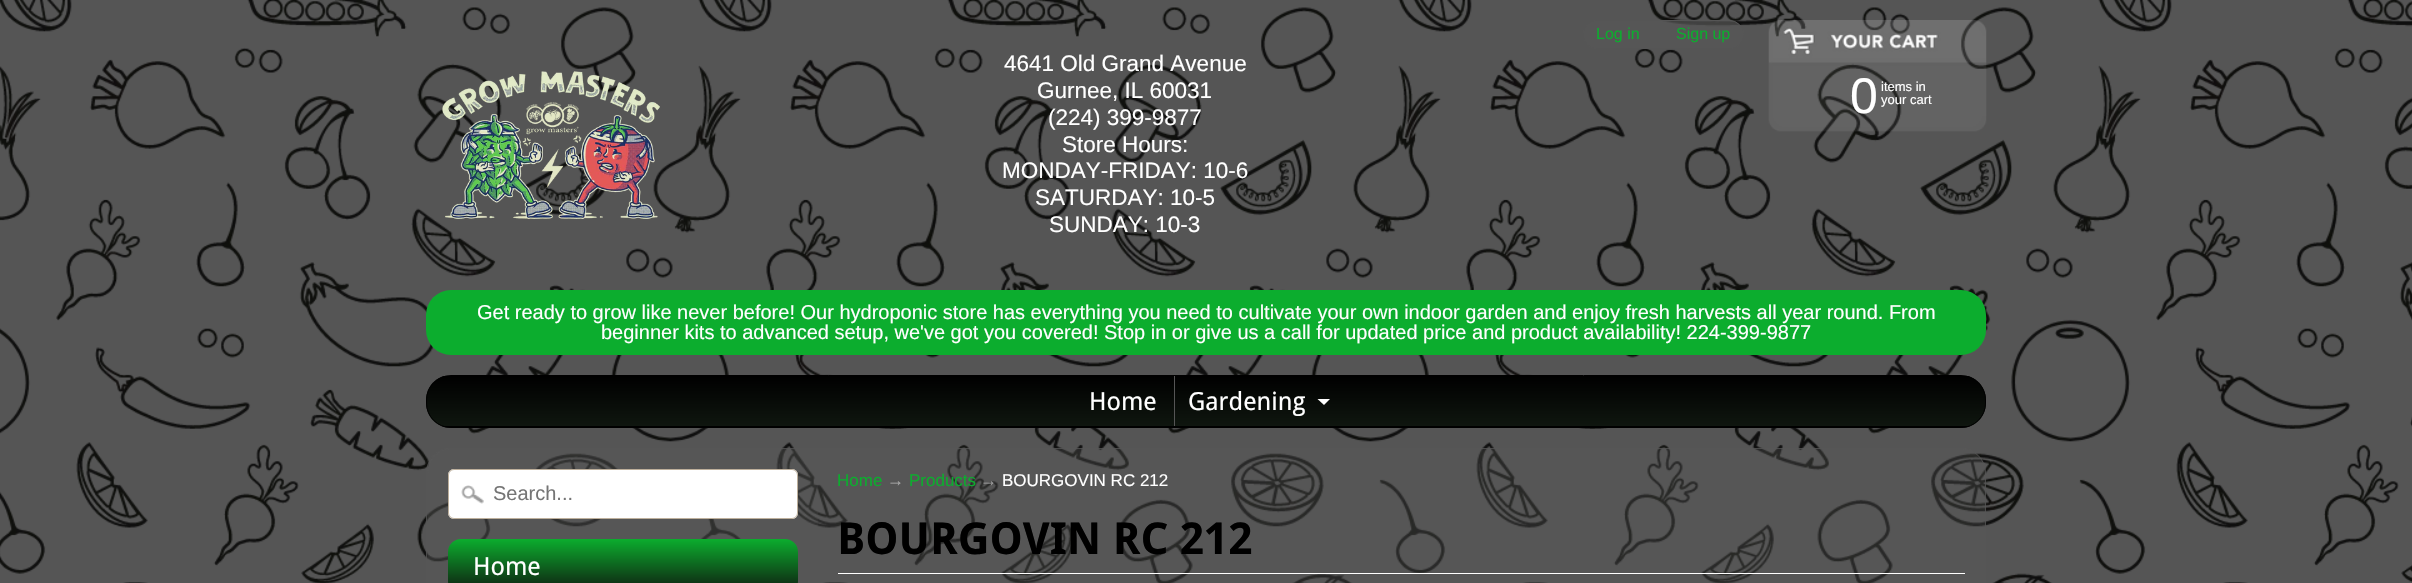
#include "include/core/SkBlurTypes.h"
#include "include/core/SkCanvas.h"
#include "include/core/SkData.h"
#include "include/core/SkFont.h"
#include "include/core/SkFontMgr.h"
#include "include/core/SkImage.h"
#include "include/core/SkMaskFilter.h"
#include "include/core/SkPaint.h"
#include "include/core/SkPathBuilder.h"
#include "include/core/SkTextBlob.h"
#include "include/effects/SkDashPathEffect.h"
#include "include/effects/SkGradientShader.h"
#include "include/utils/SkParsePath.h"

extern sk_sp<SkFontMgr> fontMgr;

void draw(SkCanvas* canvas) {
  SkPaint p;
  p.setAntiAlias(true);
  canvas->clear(SkColorSetRGB(85, 85, 85));
  canvas->drawImageRect(SkImages::DeferredFromEncodedData(SkData::MakeFromFileName("images/1.png")), SkRect::MakeLTRB(0, 0, 2412, 583), SkSamplingOptions());
  p.setColor(SkColorSetARGB(179, 85, 85, 85));
  canvas->drawRoundRect(SkRect::MakeLTRB(1583.5f, 20.5f, 1743.5f, 48.5f), 14, 14, p);
  p.setStyle(SkPaint::kStroke_Style);
  p.setStrokeWidth(1);
  p.setColor(SkColorSetRGB(85, 85, 85));
  canvas->drawRoundRect(SkRect::MakeLTRB(1583.5f, 20.5f, 1743.5f, 48.5f), 14, 14, p);
  canvas->drawImageRect(SkImages::DeferredFromEncodedData(SkData::MakeFromFileName("images/2.png")), SkRect::MakeLTRB(442, 71, 660, 219), SkSamplingOptions());
  canvas->drawImageRect(SkImages::DeferredFromEncodedData(SkData::MakeFromFileName("images/3.png")), SkRect::MakeLTRB(1768, 20, 1987, 132), SkSamplingOptions());
  p.setStyle(SkPaint::kFill_Style);
  p.setColor(SkColorSetRGB(12, 173, 46));
  canvas->drawRoundRect(SkRect::MakeLTRB(426, 290, 1986, 355), 25, 25, p);
  canvas->save();
  canvas->clipPath(SkPathBuilder().moveTo(451, 375).lineTo(1961, 375).cubicTo(1975, 375, 1986, 386, 1986, 400).lineTo(1986, 403).cubicTo(1986, 417, 1975, 428, 1961, 428).lineTo(451, 428).cubicTo(437, 428, 426, 417, 426, 403).lineTo(426, 400).cubicTo(426, 386, 437, 375, 451, 375).close().detach(), true);
  {
    const SkColor colors[] = {SK_ColorBLACK, SkColorSetRGB(15, 22, 15)};
    const float stops[] = {0, 1};
    const SkPoint ends[] = {{1206, 376}, {1206, 426}};
    p.setShader(SkGradientShader::MakeLinear(ends, colors, stops, 2, SkTileMode::kClamp));
    p.setAlpha(255);
  }
  canvas->drawRect(SkRect::MakeLTRB(426, 376, 1986, 426), p);
  {
    const SkColor colors[] = {SK_ColorBLACK, SkColorSetRGB(15, 22, 15)};
    const float stops[] = {0, 1};
    const SkPoint ends[] = {{1206, 426}, {1206, 476}};
    p.setShader(SkGradientShader::MakeLinear(ends, colors, stops, 2, SkTileMode::kClamp));
    p.setAlpha(255);
  }
  canvas->drawRect(SkRect::MakeLTRB(441, 426, 1971, 428), p);
  canvas->restore();
  p.setStyle(SkPaint::kStroke_Style);
  p.setShader(nullptr);
  p.setColor(SK_ColorBLACK);
  canvas->drawRoundRect(SkRect::MakeLTRB(426.5f, 375.5f, 1985.5f, 427.5f), 24.5f, 24.5f, p);
  p.setStyle(SkPaint::kFill_Style);
  p.setColor(SkColorSetRGB(85, 85, 85));
  canvas->drawRect(SkRect::MakeLTRB(1174, 376, 1175, 426), p);
  p.setColor(SK_ColorWHITE);
  canvas->drawPath(SkPathBuilder().moveTo(1317.5f, 399).lineTo(1330, 399).lineTo(1324, 405).close().detach(), p);
  p.setColor(SkColorSetARGB(89, 85, 85, 85));
  canvas->drawRoundRect(SkRect::MakeLTRB(426, 448, 1986, 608), 25, 25, p);
  p.setStyle(SkPaint::kStroke_Style);
  p.setColor(SkColorSetARGB(179, 85, 85, 85));
  canvas->drawRoundRect(SkRect::MakeLTRB(426.5f, 448.5f, 1985.5f, 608.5f), 24.5f, 24.5f, p);
  p.setStyle(SkPaint::kFill_Style);
  p.setColor(SkColorSetARGB(38, 85, 85, 85));
  canvas->drawPath(SkPathBuilder().moveTo(452, 449).lineTo(818, 449).lineTo(818, 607).lineTo(452, 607).cubicTo(438.5f, 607, 428, 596.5f, 428, 583).lineTo(428, 473).cubicTo(428, 459.5f, 438.5f, 449, 452, 449).close().detach(), p);
  p.setColor(SK_ColorWHITE);
  canvas->drawRoundRect(SkRect::MakeLTRB(448, 469, 798, 519), 6, 6, p);
  canvas->drawImageRect(SkImages::DeferredFromEncodedData(SkData::MakeFromFileName("images/4.png")), SkRect::MakeLTRB(461, 485, 484, 504), SkSamplingOptions());
  p.setStyle(SkPaint::kStroke_Style);
  p.setColor(SkColorSetRGB(189, 175, 155));
  canvas->drawRoundRect(SkRect::MakeLTRB(448.5f, 469.5f, 797.5f, 518.5f), 5.5f, 5.5f, p);
  p.setStyle(SkPaint::kFill_Style);
  {
    const SkColor colors[] = {SkColorSetRGB(12, 173, 46), SkColorSetRGB(15, 23, 15)};
    const float stops[] = {0, 1};
    const SkPoint ends[] = {{623, 539}, {623, 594}};
    p.setShader(SkGradientShader::MakeLinear(ends, colors, stops, 2, SkTileMode::kClamp));
    p.setAlpha(255);
  }
  canvas->drawRoundRect(SkRect::MakeLTRB(448, 539, 798, 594), 13, 13, p);
  p.setShader(nullptr);
  p.setColor(SK_ColorWHITE);
  canvas->drawRect(SkRect::MakeLTRB(838, 573, 1965, 574), p);
  SkFont font1(fontMgr->matchFamilyStyle("Liberation Sans", SkFontStyle::Normal()), 16);
  font1.setSubpixel(true);
  p.setColor(SkColorSetRGB(12, 173, 46));
  canvas->drawString("Log in", 1596, 39, font1, p);
  canvas->drawString("Sign up", 1676, 39, font1, p);
  SkFont font2(fontMgr->matchFamilyStyle("Liberation Sans", SkFontStyle::Normal()), 22.5f);
  font2.setSubpixel(true);
  p.setColor(SK_ColorWHITE);
  canvas->drawString("4641 Old Grand Avenue", 1004, 71, font2, p);
  canvas->drawString("Gurnee, IL 60031", 1037, 98, font2, p);
  canvas->drawString("(224) 399-9877", 1048, 125, font2, p);
  canvas->drawString("Store Hours:", 1062, 152, font2, p);
  canvas->drawString("MONDAY-FRIDAY: 10-6", 1002, 178, font2, p);
  canvas->drawString("SATURDAY: 10-5", 1035, 205, font2, p);
  canvas->drawString("SUNDAY: 10-3", 1049, 232, font2, p);
  SkFont font3(fontMgr->matchFamilyStyle("Liberation Sans", SkFontStyle::Normal()), 50);
  font3.setSubpixel(true);
  canvas->drawString("0", 1850, 113, font3, p);
  SkFont font4(fontMgr->matchFamilyStyle("Liberation Sans", SkFontStyle::Normal()), 13);
  font4.setSubpixel(true);
  canvas->drawString("items in", 1881, 91, font4, p);
  canvas->drawString("your cart", 1881, 104, font4, p);
  SkFont font5(fontMgr->matchFamilyStyle("Liberation Sans", SkFontStyle::Normal()), 20);
  font5.setSubpixel(true);
  canvas->drawString("Get ready to grow like never before! Our hydroponic store has everything you need to cultivate your own indoor garden and enjoy fresh harvests all year round. From", 477, 319, font5, p);
  canvas->drawString("beginner kits to advanced setup, we've got you covered! Stop in or give us a call for updated price and product availability! 224-399-9877", 601, 339, font5, p);
  SkFont font6(fontMgr->matchFamilyStyle("Droid Sans", SkFontStyle::Normal()), 25);
  font6.setSubpixel(true);
  canvas->drawString("Home", 1089, 410, font6, p);
  canvas->drawString("Gardening", 1188, 410, font6, p);
  p.setColor(SkColorSetRGB(117, 117, 117));
  canvas->drawString("Search...", 493, 500, font5, p);
  p.setColor(SK_ColorWHITE);
  canvas->drawString("Home", 473, 575, font6, p);
  SkFont font7(fontMgr->matchFamilyStyle("Liberation Sans", SkFontStyle::Normal()), 17);
  font7.setSubpixel(true);
  p.setColor(SkColorSetRGB(12, 173, 46));
  canvas->drawString("Home", 837, 486, font7, p);
  p.setColor(SkColorSetRGB(170, 170, 170));
  canvas->drawString("→", 887, 486, font7, p);
  p.setColor(SkColorSetRGB(12, 173, 46));
  canvas->drawString("Products", 909, 486, font7, p);
  p.setColor(SkColorSetRGB(160, 160, 160));
  canvas->drawString("→", 980, 486, font7, p);
  p.setColor(SK_ColorWHITE);
  canvas->drawString("BOURGOVIN RC 212", 1002, 486, font7, p);
  SkFont font8(fontMgr->matchFamilyStyle("Droid Sans", SkFontStyle::Bold()), 44);
  font8.setSubpixel(true);
  p.setColor(SK_ColorBLACK);
  canvas->drawString("BOURGOVIN RC 212", 837, 554, font8, p);
}
